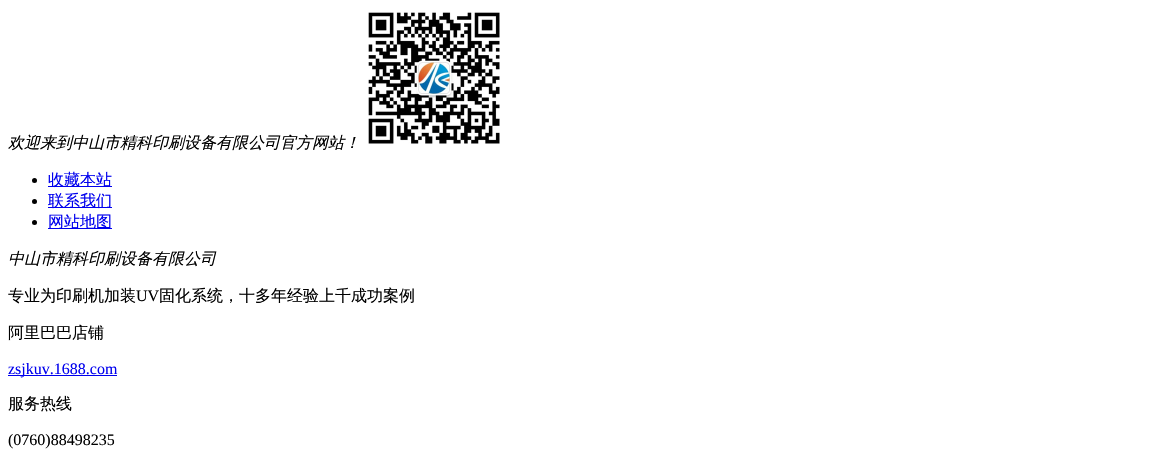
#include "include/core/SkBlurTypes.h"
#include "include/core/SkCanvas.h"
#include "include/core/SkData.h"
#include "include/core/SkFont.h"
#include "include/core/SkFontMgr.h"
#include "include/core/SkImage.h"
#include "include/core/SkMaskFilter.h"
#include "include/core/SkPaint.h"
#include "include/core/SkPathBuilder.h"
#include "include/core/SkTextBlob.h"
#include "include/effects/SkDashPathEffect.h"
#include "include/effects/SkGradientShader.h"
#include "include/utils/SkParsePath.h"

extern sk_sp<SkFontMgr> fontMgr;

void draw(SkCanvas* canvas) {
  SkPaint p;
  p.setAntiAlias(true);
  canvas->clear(SK_ColorWHITE);
  canvas->drawImageRect(SkImages::DeferredFromEncodedData(SkData::MakeFromFileName("images/1.png")), SkRect::MakeLTRB(368, 12, 500, 144), SkSamplingOptions());
  p.setColor(SK_ColorBLACK);
  canvas->drawCircle(34.5f, 180.5f, 2.5f, p);
  p.setColor(SkColorSetRGB(0, 0, 238));
  canvas->drawRect(SkRect::MakeLTRB(48, 186, 112, 187), p);
  p.setColor(SK_ColorBLACK);
  canvas->drawCircle(34.5f, 201.5f, 2.5f, p);
  p.setColor(SkColorSetRGB(0, 0, 238));
  canvas->drawRect(SkRect::MakeLTRB(48, 207, 112, 208), p);
  p.setColor(SK_ColorBLACK);
  canvas->drawCircle(34.5f, 222.5f, 2.5f, p);
  p.setColor(SkColorSetRGB(0, 0, 238));
  canvas->drawRect(SkRect::MakeLTRB(48, 228, 112, 229), p);
  canvas->drawRect(SkRect::MakeLTRB(8, 375, 117, 376), p);
  SkFont font1(fontMgr->matchFamilyStyle("WenQuanYi Zen Hei", SkFontStyle(500, SkFontStyle::kNormal_Width, SkFontStyle::kItalic_Slant)), 16);
  font1.setSubpixel(true);
  p.setColor(SK_ColorBLACK);
  canvas->drawString("欢迎来到中山市精科印刷设备有限公司官方网站！", 8, 148, font1, p);
  SkFont font2(fontMgr->matchFamilyStyle("WenQuanYi Zen Hei", SkFontStyle(500, SkFontStyle::kNormal_Width, SkFontStyle::kUpright_Slant)), 16);
  font2.setSubpixel(true);
  p.setColor(SkColorSetRGB(0, 0, 238));
  canvas->drawString("收藏本站", 48, 185, font2, p);
  canvas->drawString("联系我们", 48, 206, font2, p);
  canvas->drawString("网站地图", 48, 227, font2, p);
  p.setColor(SK_ColorBLACK);
  canvas->drawString("中山市精科印刷设备有限公司", 8, 264, font1, p);
  canvas->drawString("专业为印刷机加装", 8, 301, font2, p);
  SkFont font3(fontMgr->matchFamilyStyle("Liberation Serif", SkFontStyle::Normal()), 16);
  font3.setSubpixel(true);
  canvas->drawString("UV", 136, 301, font3, p);
  canvas->drawString("固化系统，十多年经验上千成功案例", 159, 301, font2, p);
  canvas->drawString("阿里巴巴店铺", 8, 338, font2, p);
  p.setColor(SkColorSetRGB(0, 0, 238));
  canvas->drawString("zsjkuv.1688.com", 8, 374, font3, p);
  p.setColor(SK_ColorBLACK);
  canvas->drawString("服务热线", 8, 409, font2, p);
  canvas->drawString("(0760)88498235", 8, 445, font3, p);
}
